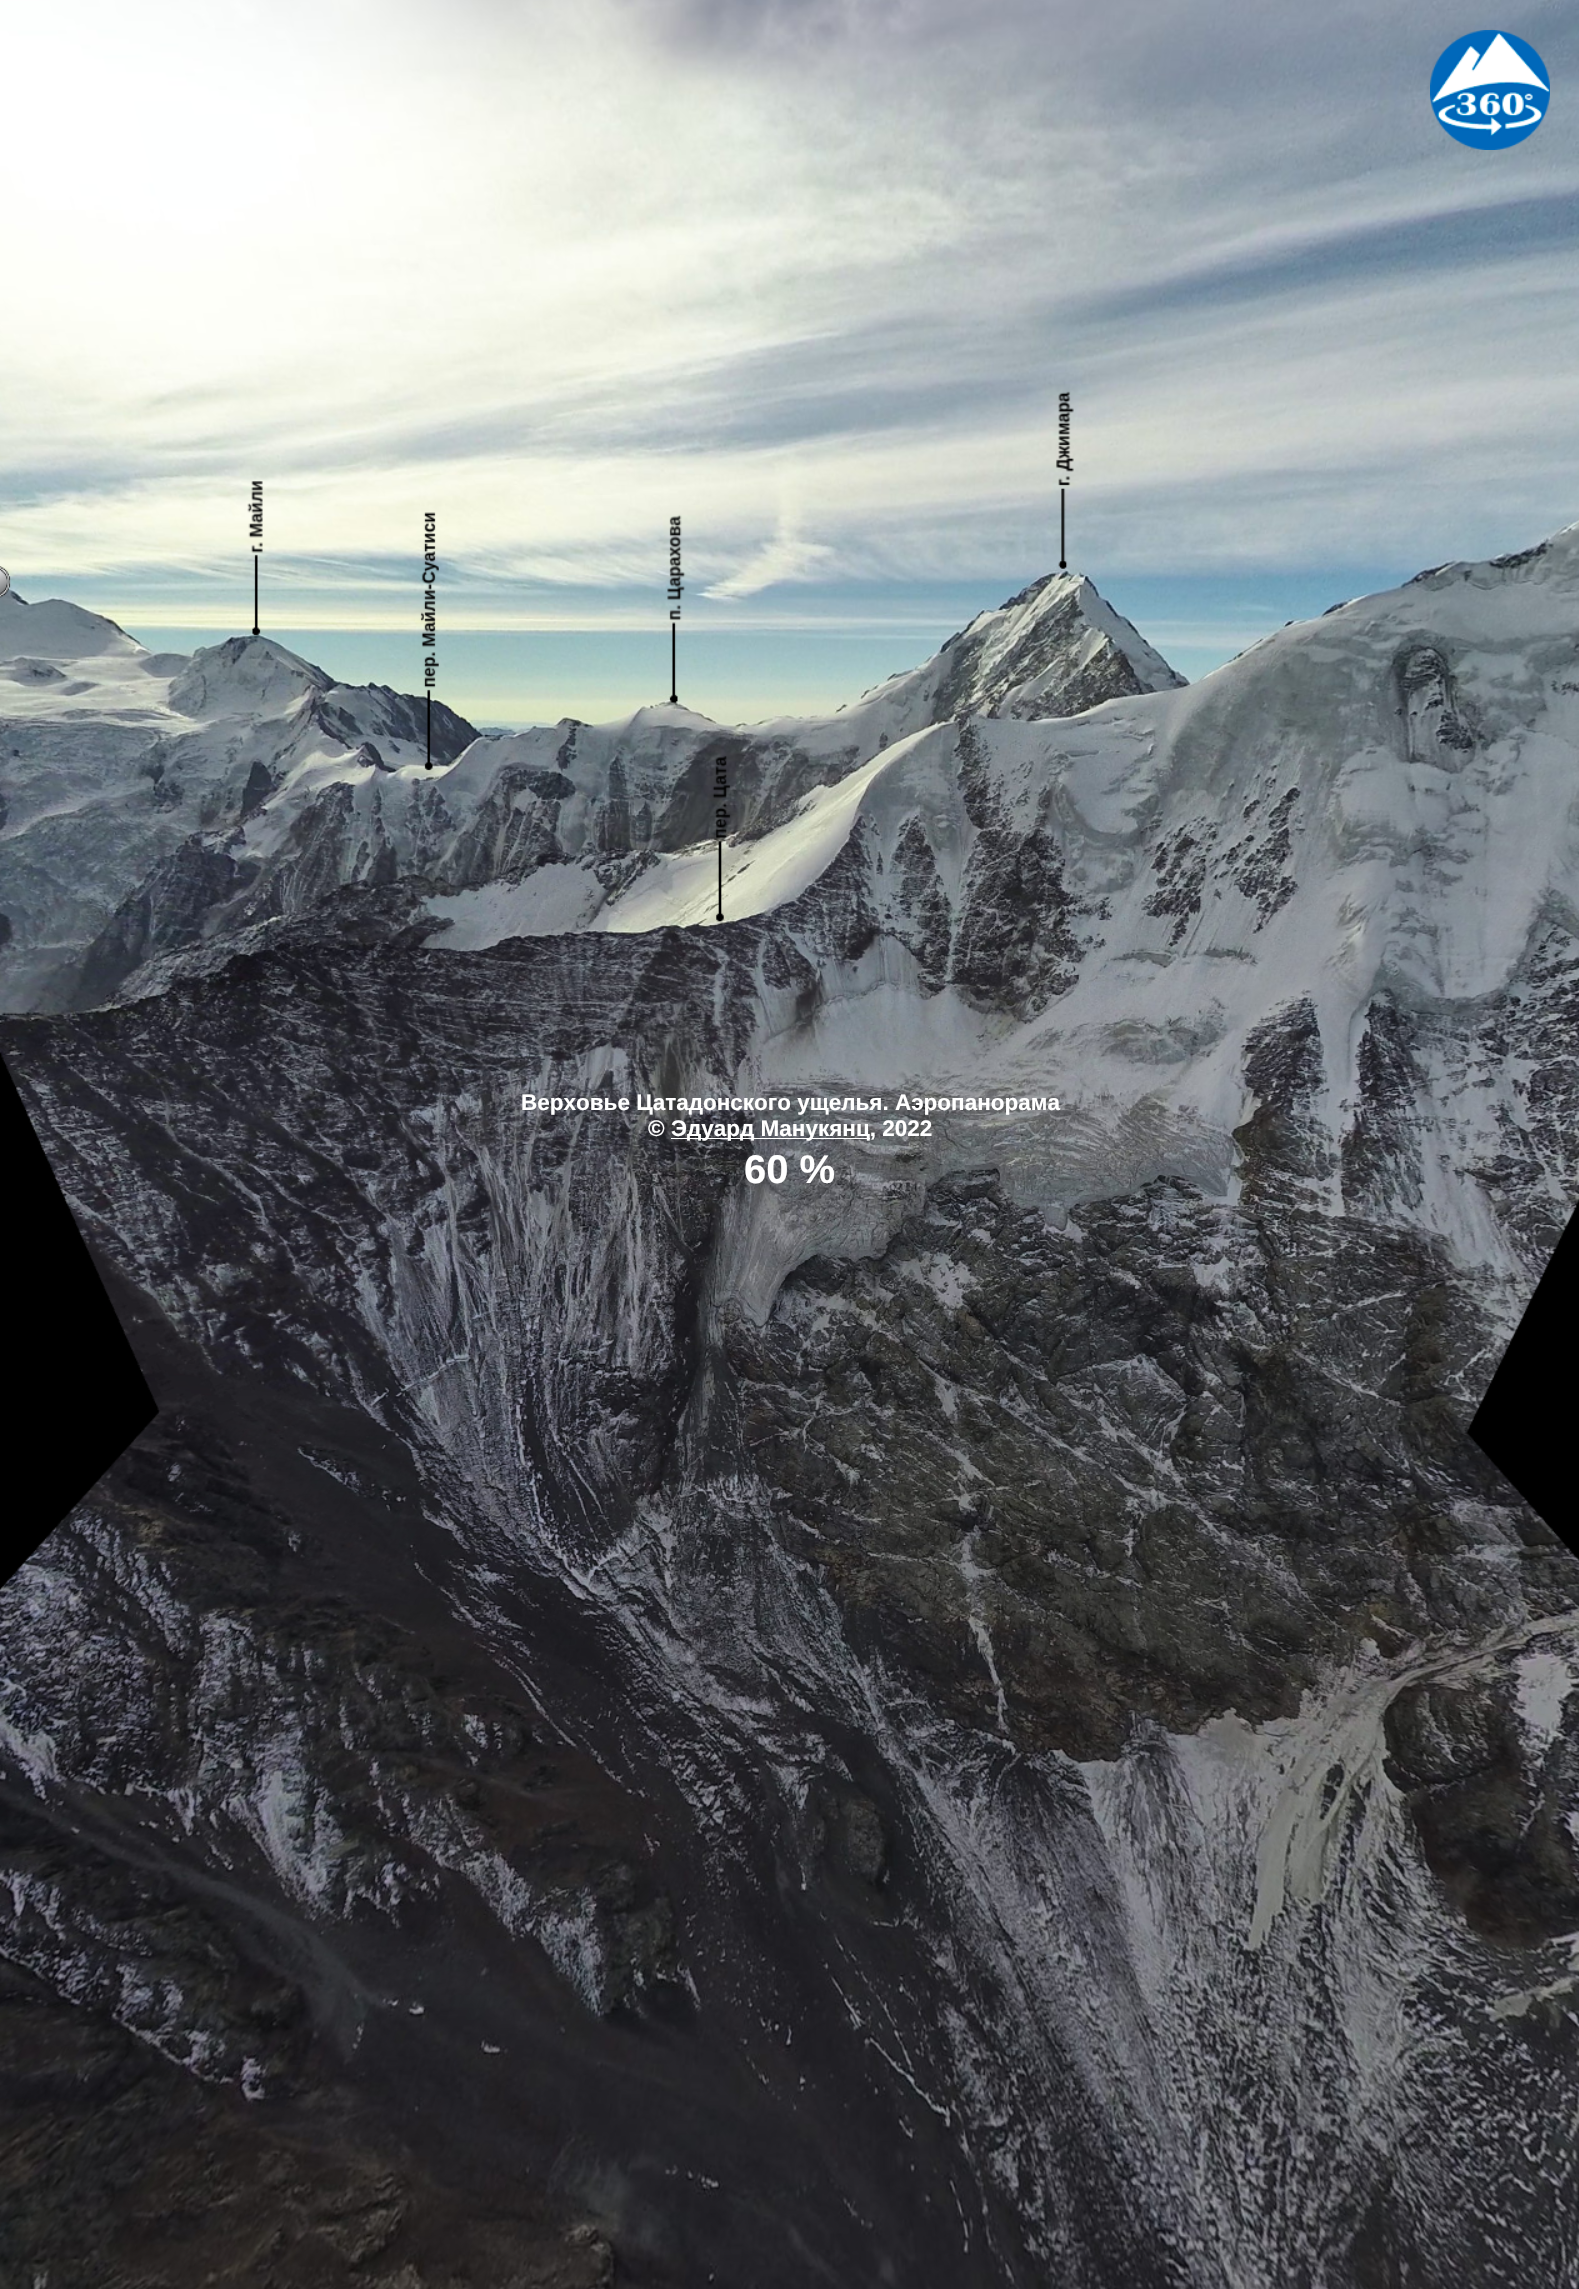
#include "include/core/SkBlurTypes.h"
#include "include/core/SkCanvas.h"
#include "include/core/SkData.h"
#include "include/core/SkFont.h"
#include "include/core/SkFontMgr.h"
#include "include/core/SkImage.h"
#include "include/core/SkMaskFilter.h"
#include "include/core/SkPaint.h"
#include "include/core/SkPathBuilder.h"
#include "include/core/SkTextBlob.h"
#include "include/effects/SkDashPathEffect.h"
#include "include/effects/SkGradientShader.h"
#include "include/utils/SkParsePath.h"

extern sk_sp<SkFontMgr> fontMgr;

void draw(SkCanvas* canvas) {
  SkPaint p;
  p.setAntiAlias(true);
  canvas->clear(SK_ColorWHITE);
  canvas->drawImageRect(SkImages::DeferredFromEncodedData(SkData::MakeFromFileName("images/1.png")), SkRect::MakeLTRB(0, 0, 1579, 2289), SkSamplingOptions());
  canvas->drawImageRect(SkImages::DeferredFromEncodedData(SkData::MakeFromFileName("images/2.png")), SkRect::MakeLTRB(1430, 30, 1550, 150), SkSamplingOptions());
  p.setColor(SK_ColorWHITE);
  canvas->drawRect(SkRect::MakeLTRB(671, 1138, 870, 1139), p);
  SkFont font1(fontMgr->matchFamilyStyle("Liberation Sans", SkFontStyle::Bold()), 22.5f);
  font1.setSubpixel(true);
  canvas->drawString("Верховье Цатадонского ущелья. Аэропанорама", 521, 1110, font1, p);
  canvas->drawString("©", 648, 1136, font1, p);
  canvas->drawString("Эдуард Манукянц, 2022", 671, 1136, font1, p);
  SkFont font2(fontMgr->matchFamilyStyle("Liberation Sans", SkFontStyle::Bold()), 40);
  font2.setSubpixel(true);
  canvas->drawString("60 %", 744, 1183, font2, p);
}
